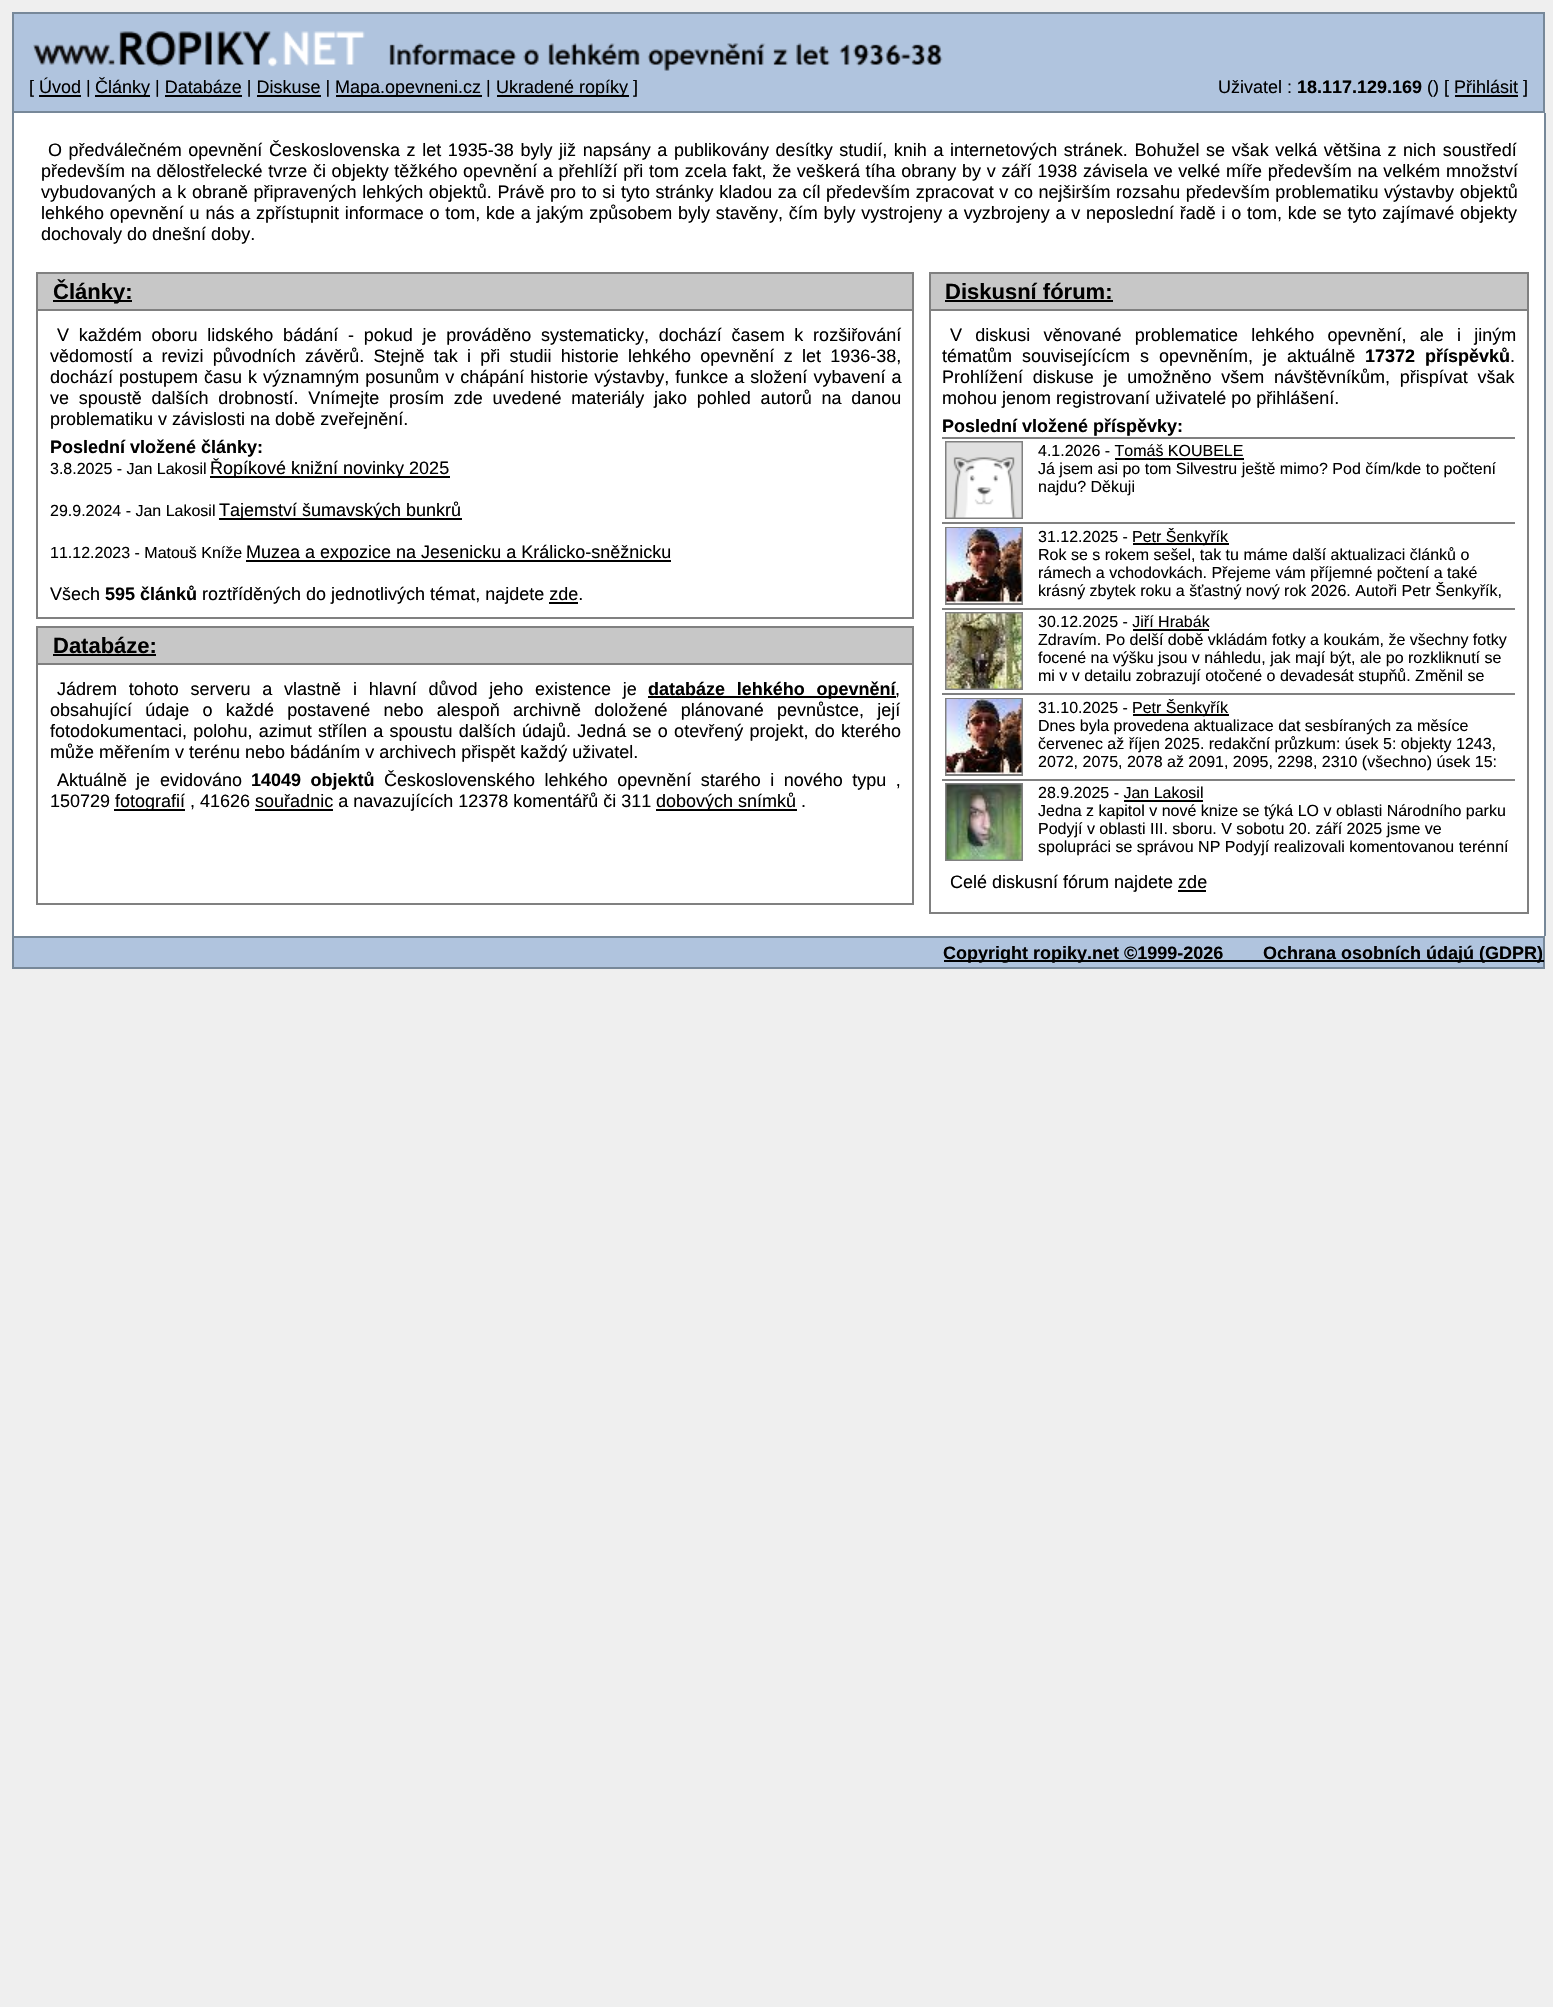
#include "include/core/SkBlurTypes.h"
#include "include/core/SkCanvas.h"
#include "include/core/SkData.h"
#include "include/core/SkFont.h"
#include "include/core/SkFontMgr.h"
#include "include/core/SkImage.h"
#include "include/core/SkMaskFilter.h"
#include "include/core/SkPaint.h"
#include "include/core/SkPathBuilder.h"
#include "include/core/SkTextBlob.h"
#include "include/effects/SkDashPathEffect.h"
#include "include/effects/SkGradientShader.h"
#include "include/utils/SkParsePath.h"

extern sk_sp<SkFontMgr> fontMgr;

void draw(SkCanvas* canvas) {
  SkPaint p;
  p.setAntiAlias(true);
  auto spacedText = [&](const char* s, float x, float y, const SkFont& font, const SkPaint& ink, float letter, float word) {
    std::vector<SkGlyphID> glyphs(font.countText(s, strlen(s), SkTextEncoding::kUTF8));
    std::vector<float> xs(glyphs.size());
    font.textToGlyphs(s, strlen(s), SkTextEncoding::kUTF8, glyphs);
    font.getXPos(glyphs, xs, x);
    float extra = 0;
    for (size_t i = 0; i < glyphs.size(); i++) {
      xs[i] += extra;
      extra += letter + word * (glyphs[i] == font.unicharToGlyph(' '));
    }
    canvas->drawTextBlob(SkTextBlob::MakeFromPosHGlyphs(glyphs, xs, y, font), 0, 0, ink);
  };
  canvas->clear(SkColorSetRGB(239, 239, 239));
  p.setColor(SkColorSetRGB(176, 196, 222));
  canvas->drawRect(SkRect::MakeLTRB(14, 14, 1543, 111), p);
  canvas->drawImageRect(SkImages::DeferredFromEncodedData(SkData::MakeFromFileName("images/1.png")), SkRect::MakeLTRB(33, 31, 943, 71), SkSamplingOptions());
  p.setStyle(SkPaint::kStroke_Style);
  p.setStrokeWidth(2);
  p.setColor(SkColorSetRGB(119, 136, 153));
  canvas->drawRect(SkRect::MakeLTRB(13, 13, 1544, 112), p);
  p.setStyle(SkPaint::kFill_Style);
  p.setColor(SK_ColorBLACK);
  canvas->drawRect(SkRect::MakeLTRB(95, 95, 150, 97), p);
  canvas->drawRect(SkRect::MakeLTRB(336, 95, 482, 97), p);
  canvas->drawRect(SkRect::MakeLTRB(497, 95, 629, 97), p);
  canvas->drawRect(SkRect::MakeLTRB(39, 95, 81, 97), p);
  canvas->drawRect(SkRect::MakeLTRB(165, 95, 242, 97), p);
  canvas->drawRect(SkRect::MakeLTRB(257, 95, 321, 97), p);
  canvas->drawRect(SkRect::MakeLTRB(1455, 95, 1518, 97), p);
  p.setColor(SK_ColorWHITE);
  canvas->drawRect(SkRect::MakeLTRB(14, 113, 1544, 936), p);
  p.setColor(SkColorSetRGB(119, 136, 153));
  canvas->drawRect(SkRect::MakeLTRB(1544, 113, 1546, 936), p);
  canvas->drawRect(SkRect::MakeLTRB(12, 113, 14, 936), p);
  p.setColor(SkColorSetRGB(128, 128, 128));
  canvas->drawRect(SkRect::MakeLTRB(912, 311, 914, 618), p);
  canvas->drawRect(SkRect::MakeLTRB(36, 617, 914, 619), p);
  canvas->drawRect(SkRect::MakeLTRB(36, 311, 38, 618), p);
  p.setColor(SkColorSetRGB(199, 199, 199));
  canvas->drawRect(SkRect::MakeLTRB(37, 273, 913, 310), p);
  p.setStyle(SkPaint::kStroke_Style);
  p.setColor(SkColorSetRGB(128, 128, 128));
  canvas->drawRect(SkRect::MakeLTRB(37, 273, 913, 310), p);
  p.setStyle(SkPaint::kFill_Style);
  p.setColor(SK_ColorBLACK);
  canvas->drawRect(SkRect::MakeLTRB(53, 300, 132, 302), p);
  canvas->drawRect(SkRect::MakeLTRB(210, 476, 450, 478), p);
  canvas->drawRect(SkRect::MakeLTRB(219, 518, 462, 520), p);
  canvas->drawRect(SkRect::MakeLTRB(246, 560, 671, 562), p);
  canvas->drawRect(SkRect::MakeLTRB(549, 602, 578, 604), p);
  p.setColor(SkColorSetRGB(128, 128, 128));
  canvas->drawRect(SkRect::MakeLTRB(1527, 311, 1529, 914), p);
  canvas->drawRect(SkRect::MakeLTRB(929, 912, 1529, 914), p);
  canvas->drawRect(SkRect::MakeLTRB(929, 311, 931, 914), p);
  p.setColor(SkColorSetRGB(199, 199, 199));
  canvas->drawRect(SkRect::MakeLTRB(930, 273, 1528, 310), p);
  p.setStyle(SkPaint::kStroke_Style);
  p.setColor(SkColorSetRGB(128, 128, 128));
  canvas->drawRect(SkRect::MakeLTRB(930, 273, 1528, 310), p);
  p.setStyle(SkPaint::kFill_Style);
  p.setColor(SK_ColorBLACK);
  canvas->drawRect(SkRect::MakeLTRB(945, 300, 1113, 302), p);
  p.setColor(SkColorSetRGB(128, 128, 128));
  canvas->drawRect(SkRect::MakeLTRB(942, 437, 1515, 439), p);
  p.setStyle(SkPaint::kStroke_Style);
  canvas->drawRect(SkRect::MakeLTRB(946, 442, 1022, 518), p);
  canvas->drawImageRect(SkImages::DeferredFromEncodedData(SkData::MakeFromFileName("images/2.png")), SkRect::MakeLTRB(946, 442, 1022, 518), SkSamplingOptions());
  p.setStyle(SkPaint::kFill_Style);
  p.setColor(SK_ColorBLACK);
  canvas->drawRect(SkRect::MakeLTRB(1115, 458, 1244, 460), p);
  p.setColor(SkColorSetRGB(128, 128, 128));
  canvas->drawRect(SkRect::MakeLTRB(942, 522, 1515, 524), p);
  p.setStyle(SkPaint::kStroke_Style);
  canvas->drawRect(SkRect::MakeLTRB(946, 528, 1022, 604), p);
  canvas->drawImageRect(SkImages::DeferredFromEncodedData(SkData::MakeFromFileName("images/3.png")), SkRect::MakeLTRB(946, 528, 1022, 603), SkSamplingOptions());
  p.setStyle(SkPaint::kFill_Style);
  p.setColor(SK_ColorBLACK);
  canvas->drawRect(SkRect::MakeLTRB(1133, 543, 1229, 545), p);
  p.setColor(SkColorSetRGB(128, 128, 128));
  canvas->drawRect(SkRect::MakeLTRB(942, 608, 1515, 610), p);
  p.setStyle(SkPaint::kStroke_Style);
  canvas->drawRect(SkRect::MakeLTRB(946, 613, 1022, 689), p);
  canvas->drawImageRect(SkImages::DeferredFromEncodedData(SkData::MakeFromFileName("images/4.png")), SkRect::MakeLTRB(946, 613, 1022, 689), SkSamplingOptions());
  p.setStyle(SkPaint::kFill_Style);
  p.setColor(SK_ColorBLACK);
  canvas->drawRect(SkRect::MakeLTRB(1133, 629, 1209, 631), p);
  p.setColor(SkColorSetRGB(128, 128, 128));
  canvas->drawRect(SkRect::MakeLTRB(942, 693, 1515, 695), p);
  p.setStyle(SkPaint::kStroke_Style);
  canvas->drawRect(SkRect::MakeLTRB(946, 699, 1022, 775), p);
  canvas->drawImageRect(SkImages::DeferredFromEncodedData(SkData::MakeFromFileName("images/3.png")), SkRect::MakeLTRB(946, 699, 1022, 774), SkSamplingOptions());
  p.setStyle(SkPaint::kFill_Style);
  p.setColor(SK_ColorBLACK);
  canvas->drawRect(SkRect::MakeLTRB(1133, 714, 1229, 716), p);
  p.setColor(SkColorSetRGB(128, 128, 128));
  canvas->drawRect(SkRect::MakeLTRB(942, 779, 1515, 781), p);
  p.setStyle(SkPaint::kStroke_Style);
  canvas->drawRect(SkRect::MakeLTRB(946, 784, 1022, 860), p);
  canvas->drawImageRect(SkImages::DeferredFromEncodedData(SkData::MakeFromFileName("images/5.png")), SkRect::MakeLTRB(946, 784, 1022, 860), SkSamplingOptions());
  p.setStyle(SkPaint::kFill_Style);
  p.setColor(SK_ColorBLACK);
  canvas->drawRect(SkRect::MakeLTRB(1124, 800, 1203, 802), p);
  canvas->drawRect(SkRect::MakeLTRB(1178, 890, 1206, 892), p);
  p.setColor(SkColorSetRGB(128, 128, 128));
  canvas->drawRect(SkRect::MakeLTRB(912, 665, 914, 905), p);
  canvas->drawRect(SkRect::MakeLTRB(36, 903, 914, 905), p);
  canvas->drawRect(SkRect::MakeLTRB(36, 665, 38, 905), p);
  p.setColor(SkColorSetRGB(199, 199, 199));
  canvas->drawRect(SkRect::MakeLTRB(37, 627, 913, 664), p);
  p.setStyle(SkPaint::kStroke_Style);
  p.setColor(SkColorSetRGB(128, 128, 128));
  canvas->drawRect(SkRect::MakeLTRB(37, 627, 913, 664), p);
  p.setStyle(SkPaint::kFill_Style);
  p.setColor(SK_ColorBLACK);
  canvas->drawRect(SkRect::MakeLTRB(53, 654, 156, 656), p);
  canvas->drawRect(SkRect::MakeLTRB(648, 696, 896, 698), p);
  canvas->drawRect(SkRect::MakeLTRB(114, 809, 185, 811), p);
  canvas->drawRect(SkRect::MakeLTRB(656, 809, 797, 811), p);
  canvas->drawRect(SkRect::MakeLTRB(255, 809, 333, 811), p);
  p.setColor(SkColorSetRGB(176, 196, 222));
  canvas->drawRect(SkRect::MakeLTRB(13, 937, 1544, 968), p);
  p.setStyle(SkPaint::kStroke_Style);
  p.setColor(SkColorSetRGB(119, 136, 153));
  canvas->drawRect(SkRect::MakeLTRB(13, 937, 1544, 968), p);
  p.setStyle(SkPaint::kFill_Style);
  p.setColor(SK_ColorBLACK);
  canvas->drawRect(SkRect::MakeLTRB(944, 960, 1544, 962), p);
  SkFont font1(fontMgr->matchFamilyStyle("Liberation Sans", SkFontStyle::Normal()), 18);
  font1.setSubpixel(true);
  canvas->drawString("[ Úvod |", 29, 93, font1, p);
  canvas->drawString("Články | Databáze | Diskuse |", 95, 93, font1, p);
  canvas->drawString("Mapa.opevneni.cz |", 335, 93, font1, p);
  canvas->drawString("Ukradené ropíky ]", 496, 93, font1, p);
  canvas->drawString("Uživatel :", 1218, 93, font1, p);
  SkFont font2(fontMgr->matchFamilyStyle("Liberation Sans", SkFontStyle::Bold()), 18);
  font2.setSubpixel(true);
  canvas->drawString("18.117.129.169", 1297, 93, font2, p);
  canvas->drawString("() [ Přihlásit ]", 1427, 93, font1, p);
  spacedText("O předválečném opevnění Československa z let 1935-38 byly již napsány a publikovány desítky studií, knih a internetových stránek. Bohužel se však velká většina z nich soustředí", 48, 156, font1, p, 0, 1.6f);
  spacedText("především na dělostřelecké tvrze či objekty těžkého opevnění a přehlíží při tom zcela fakt, že veškerá tíha obrany by v září 1938 závisela ve velké míře především na velkém množství", 41, 177, font1, p, 0, 0.7f);
  spacedText("vybudovaných a k obraně připravených lehkých objektů. Právě pro to si tyto stránky kladou za cíl především zpracovat v co nejširším rozsahu především problematiku výstavby objektů", 41, 198, font1, p, 0, 0.6f);
  spacedText("lehkého opevnění u nás a zpřístupnit informace o tom, kde a jakým způsobem byly stavěny, čím byly vystrojeny a vyzbrojeny a v neposlední řadě i o tom, kde se tyto zajímavé objekty", 41, 219, font1, p, 0, 0.75f);
  canvas->drawString("dochovaly do dnešní doby.", 41, 240, font1, p);
  SkFont font3(fontMgr->matchFamilyStyle("Liberation Sans", SkFontStyle::Bold()), 22);
  font3.setSubpixel(true);
  canvas->drawString("Články:", 53, 299, font3, p);
  spacedText("V každém oboru lidského bádání - pokud je prováděno systematicky, dochází časem k rozšiřování", 57, 341, font1, p, 0, 4.75f);
  spacedText("vědomostí a revizi původních závěrů. Stejně tak i při studii historie lehkého opevnění z let 1936-38,", 50, 362, font1, p, 0, 4.25f);
  spacedText("dochází postupem času k významným posunům v chápání historie výstavby, funkce a složení vybavení a", 50, 383, font1, p, 0, 1);
  spacedText("ve spoustě dalších drobností. Vnímejte prosím zde uvedené materiály jako pohled autorů na danou", 50, 404, font1, p, 0, 4.75f);
  canvas->drawString("problematiku v závislosti na době zveřejnění.", 50, 425, font1, p);
  canvas->drawString("Poslední vložené články:", 50, 453, font2, p);
  SkFont font4(fontMgr->matchFamilyStyle("Liberation Sans", SkFontStyle::Normal()), 16);
  font4.setSubpixel(true);
  canvas->drawString("3.8.2025 - Jan Lakosil", 50, 474, font4, p);
  canvas->drawString("Řopíkové knižní novinky 2025", 210, 474, font1, p);
  canvas->drawString("29.9.2024 - Jan Lakosil", 50, 516, font4, p);
  canvas->drawString("Tajemství šumavských bunkrů", 219, 516, font1, p);
  canvas->drawString("11.12.2023 - Matouš Kníže", 50, 558, font4, p);
  canvas->drawString("Muzea a expozice na Jesenicku a Králicko-sněžnicku", 246, 558, font1, p);
  canvas->drawString("Všech", 50, 600, font1, p);
  canvas->drawString("595 článků", 105, 600, font2, p);
  canvas->drawString("roztříděných do jednotlivých témat, najdete zde.", 202, 600, font1, p);
  canvas->drawString("Diskusní fórum:", 945, 299, font3, p);
  spacedText("V diskusi věnované problematice lehkého opevnění, ale i jiným", 950, 341, font1, p, 0, 8.25f);
  spacedText("tématům souvisejícícm s opevněním, je aktuálně", 942, 362, font1, p, 0, 5);
  spacedText("17372 příspěvků", 1365, 362, font2, p, 0, 5);
  canvas->drawString(".", 1510, 362, font1, p);
  spacedText("Prohlížení diskuse je umožněno všem návštěvníkům, přispívat však", 942, 383, font1, p, 0, 4.75f);
  canvas->drawString("mohou jenom registrovaní uživatelé po přihlášení.", 942, 404, font1, p);
  canvas->drawString("Poslední vložené příspěvky:", 942, 432, font2, p);
  canvas->drawString("4.1.2026 - Tomáš KOUBELE", 1038, 456, font4, p);
  canvas->drawString("Já jsem asi po tom Silvestru ještě mimo? Pod čím/kde to počtení", 1038, 474, font4, p);
  canvas->drawString("najdu? Děkuji", 1038, 492, font4, p);
  canvas->drawString("31.12.2025 -", 1038, 542, font4, p);
  canvas->drawString("Petr Šenkyřík", 1132, 542, font4, p);
  canvas->drawString("Rok se s rokem sešel, tak tu máme další aktualizaci článků o", 1038, 560, font4, p);
  canvas->drawString("rámech a vchodovkách. Přejeme vám příjemné počtení a také", 1038, 578, font4, p);
  canvas->drawString("krásný zbytek roku a šťastný nový rok 2026. Autoři Petr Šenkyřík,", 1038, 596, font4, p);
  canvas->drawString("30.12.2025 - Jiří Hrabák", 1038, 627, font4, p);
  canvas->drawString("Zdravím. Po delší době vkládám fotky a koukám, že všechny fotky", 1038, 645, font4, p);
  canvas->drawString("focené na výšku jsou v náhledu, jak mají být, ale po rozkliknutí se", 1038, 663, font4, p);
  canvas->drawString("mi v v detailu zobrazují otočené o devadesát stupňů. Změnil se", 1038, 681, font4, p);
  canvas->drawString("31.10.2025 -", 1038, 713, font4, p);
  canvas->drawString("Petr Šenkyřík", 1132, 713, font4, p);
  canvas->drawString("Dnes byla provedena aktualizace dat sesbíraných za měsíce", 1038, 731, font4, p);
  canvas->drawString("červenec až říjen 2025. redakční průzkum: úsek 5: objekty 1243,", 1038, 749, font4, p);
  canvas->drawString("2072, 2075, 2078 až 2091, 2095, 2298, 2310 (všechno) úsek 15:", 1038, 767, font4, p);
  canvas->drawString("28.9.2025 - Jan Lakosil", 1038, 798, font4, p);
  canvas->drawString("Jedna z kapitol v nové knize se týká LO v oblasti Národního parku", 1038, 816, font4, p);
  canvas->drawString("Podyjí v oblasti III. sboru. V sobotu 20. září 2025 jsme ve", 1038, 834, font4, p);
  canvas->drawString("spolupráci se správou NP Podyjí realizovali komentovanou terénní", 1038, 852, font4, p);
  canvas->drawString("Celé diskusní fórum najdete zde", 950, 888, font1, p);
  canvas->drawString("Databáze:", 53, 653, font3, p);
  spacedText("Jádrem tohoto serveru a vlastně i hlavní důvod jeho existence je", 57, 695, font1, p, 0, 6.75f);
  spacedText("databáze lehkého opevnění", 648, 695, font2, p, 0, 6.75f);
  canvas->drawString(",", 895, 695, font1, p);
  spacedText("obsahující údaje o každé postavené nebo alespoň archivně doložené plánované pevnůstce, její", 50, 716, font1, p, 0, 8.25f);
  spacedText("fotodokumentaci, polohu, azimut střílen a spoustu dalších údajů. Jedná se o otevřený projekt, do kterého", 50, 737, font1, p, 0, 1.25f);
  canvas->drawString("může měřením v terénu nebo bádáním v archivech přispět každý uživatel.", 50, 758, font1, p);
  canvas->drawString("Aktuálně", 57, 786, font1, p);
  canvas->drawString("je", 136, 786, font1, p);
  canvas->drawString("evidováno", 160, 786, font1, p);
  spacedText("14049 objektů", 251, 786, font2, p, 0, 4.5f);
  spacedText("Československého lehkého opevnění starého i nového typu ,", 384, 786, font1, p, 0, 4.5f);
  canvas->drawString("150729", 50, 807, font1, p);
  canvas->drawString("fotografií , 41626 souřadnic a navazujících 12378 komentářů či 311", 115, 807, font1, p);
  canvas->drawString("dobových snímků .", 656, 807, font1, p);
  canvas->drawString("Copyright ropiky.net ©1999-2026", 943, 959, font2, p);
  canvas->drawString("Ochrana osobních údajú (GDPR)", 1263, 959, font2, p);
}
